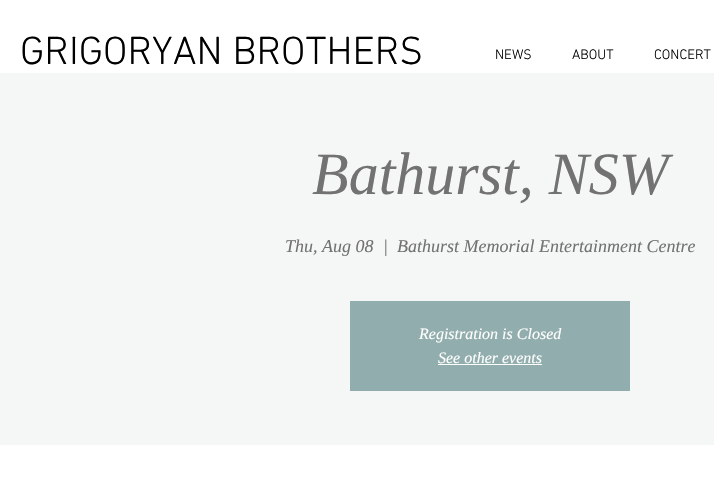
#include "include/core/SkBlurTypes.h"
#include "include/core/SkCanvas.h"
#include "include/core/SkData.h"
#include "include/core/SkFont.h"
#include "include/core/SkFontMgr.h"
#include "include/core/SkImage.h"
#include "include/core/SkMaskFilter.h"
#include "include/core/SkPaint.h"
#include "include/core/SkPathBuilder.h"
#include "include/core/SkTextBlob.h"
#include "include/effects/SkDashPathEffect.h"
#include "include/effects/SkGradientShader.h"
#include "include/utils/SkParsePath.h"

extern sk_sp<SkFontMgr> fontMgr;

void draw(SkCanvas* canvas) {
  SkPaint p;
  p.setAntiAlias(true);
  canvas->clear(SK_ColorWHITE);
  p.setColor(SkColorSetRGB(245, 247, 247));
  canvas->drawRect(SkRect::MakeLTRB(0, 73, 714, 445), p);
  p.setColor(SkColorSetRGB(146, 173, 173));
  canvas->drawRect(SkRect::MakeLTRB(350, 301, 630, 391), p);
  p.setColor(SK_ColorWHITE);
  canvas->drawRect(SkRect::MakeLTRB(438, 364, 542, 365), p);
  SkFont font1(fontMgr->matchFamilyStyle("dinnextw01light", SkFontStyle(300, SkFontStyle::kNormal_Width, SkFontStyle::kUpright_Slant)), 40);
  font1.setSubpixel(true);
  p.setColor(SK_ColorBLACK);
  canvas->drawString("GRIGORYAN BROTHERS", 20, 64, font1, p);
  SkFont font2(fontMgr->matchFamilyStyle("dinnextw01light", SkFontStyle(300, SkFontStyle::kNormal_Width, SkFontStyle::kUpright_Slant)), 14);
  font2.setSubpixel(true);
  canvas->drawString("NEWS", 495, 59, font2, p);
  canvas->drawString("ABOUT", 572, 59, font2, p);
  canvas->drawString("CONCERT", 654, 59, font2, p);
  SkFont font3(fontMgr->matchFamilyStyle("Liberation Serif", SkFontStyle::Italic()), 60);
  font3.setSubpixel(true);
  p.setColor(SkColorSetRGB(114, 114, 114));
  canvas->drawString("Bathurst, NSW", 312, 194, font3, p);
  SkFont font4(fontMgr->matchFamilyStyle("Liberation Serif", SkFontStyle::Italic()), 18);
  font4.setSubpixel(true);
  canvas->drawString("Thu, Aug 08", 285, 252, font4, p);
  canvas->drawString("|", 383, 252, font4, p);
  canvas->drawString("Bathurst Memorial Entertainment Centre", 397, 252, font4, p);
  SkFont font5(fontMgr->matchFamilyStyle("Liberation Serif", SkFontStyle::Italic()), 16);
  font5.setSubpixel(true);
  p.setColor(SK_ColorWHITE);
  canvas->drawString("Registration is Closed", 419, 339, font5, p);
  canvas->drawString("See other events", 438, 363, font5, p);
}
